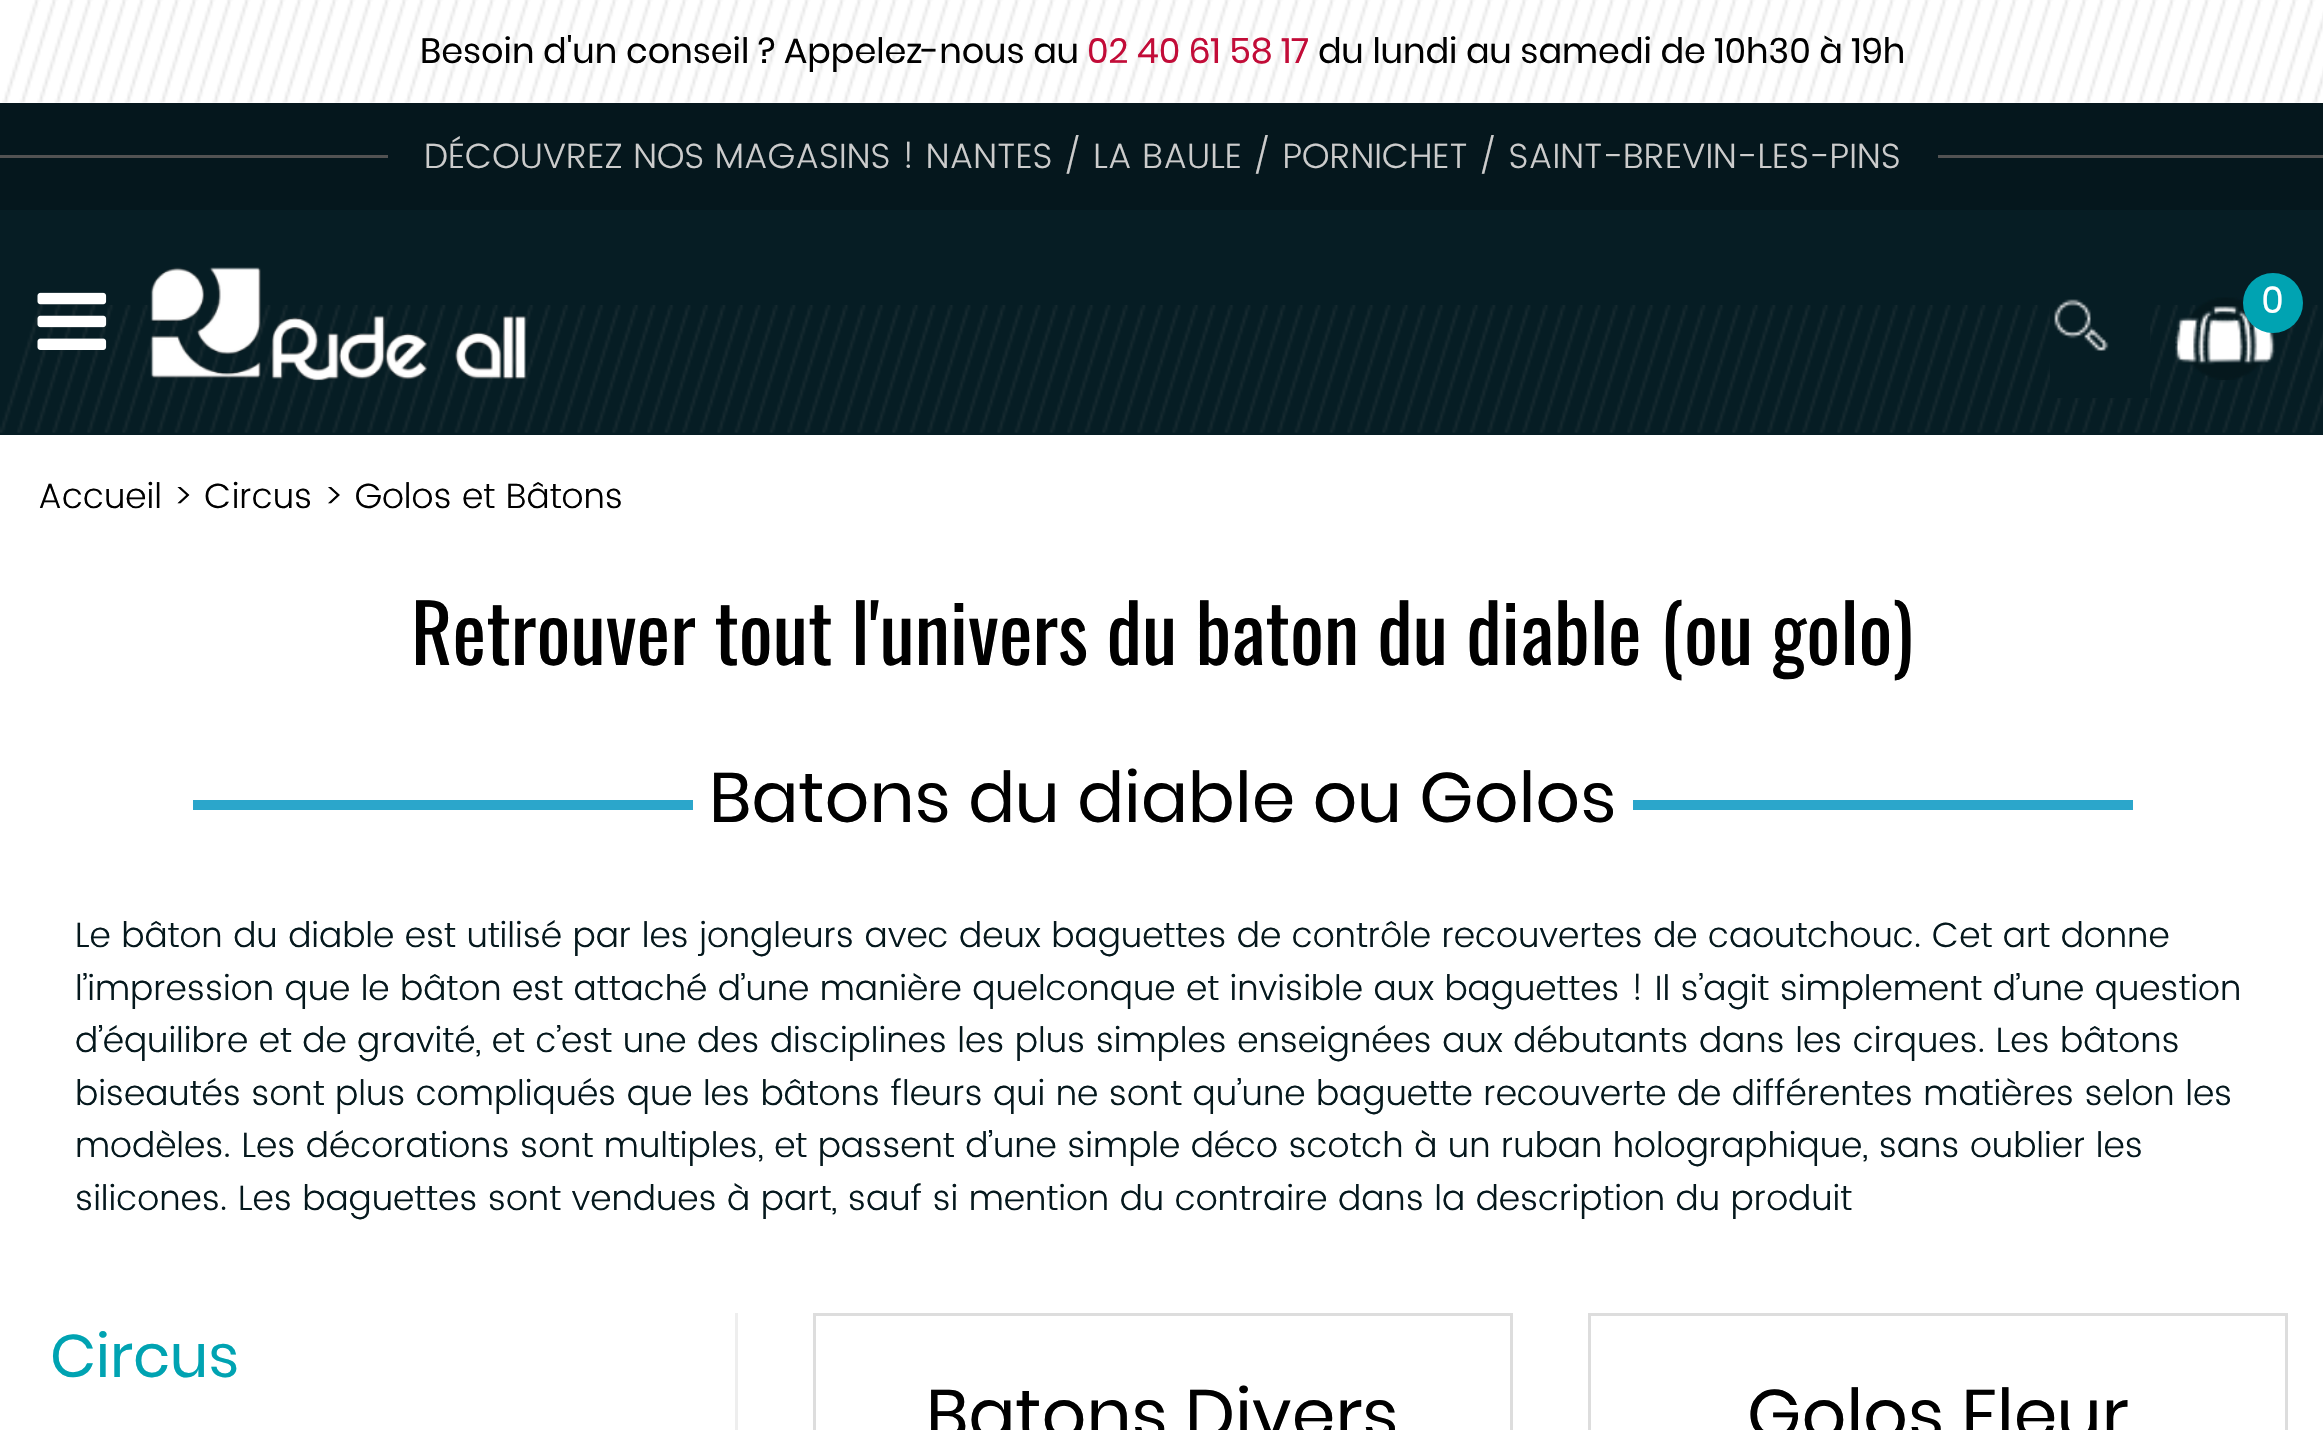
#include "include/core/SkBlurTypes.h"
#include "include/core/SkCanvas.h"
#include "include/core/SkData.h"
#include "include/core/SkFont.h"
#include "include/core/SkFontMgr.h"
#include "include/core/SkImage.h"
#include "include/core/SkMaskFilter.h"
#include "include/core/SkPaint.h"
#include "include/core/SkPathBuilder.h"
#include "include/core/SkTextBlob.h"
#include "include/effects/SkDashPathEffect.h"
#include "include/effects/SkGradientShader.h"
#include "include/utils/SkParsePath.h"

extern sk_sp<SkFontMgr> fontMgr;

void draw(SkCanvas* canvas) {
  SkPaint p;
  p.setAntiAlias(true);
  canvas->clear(SK_ColorWHITE);
  canvas->drawImageRect(SkImages::DeferredFromEncodedData(SkData::MakeFromFileName("images/1.png")), SkRect::MakeLTRB(2, 0, 2323, 103), SkSamplingOptions());
  p.setColor(SkColorSetRGB(5, 23, 29));
  canvas->drawRect(SkRect::MakeLTRB(0, 103, 2323, 210), p);
  p.setColor(SkColorSetRGB(82, 82, 82));
  canvas->drawRect(SkRect::MakeLTRB(0, 155, 388, 158), p);
  canvas->drawRect(SkRect::MakeLTRB(1938, 155, 2323, 158), p);
  p.setColor(SkColorSetRGB(6, 29, 36));
  canvas->drawRect(SkRect::MakeLTRB(0, 210, 2323, 435), p);
  canvas->drawImageRect(SkImages::DeferredFromEncodedData(SkData::MakeFromFileName("images/2.png")), SkRect::MakeLTRB(0, 305, 2323, 433), SkSamplingOptions());
  canvas->drawImageRect(SkImages::DeferredFromEncodedData(SkData::MakeFromFileName("images/3.png")), SkRect::MakeLTRB(37, 292, 107, 350), SkSamplingOptions());
  canvas->drawImageRect(SkImages::DeferredFromEncodedData(SkData::MakeFromFileName("images/4.png")), SkRect::MakeLTRB(150, 267, 526, 381), SkSamplingOptions());
  canvas->drawRect(SkRect::MakeLTRB(2050, 305, 2150, 398), p);
  canvas->drawImageRect(SkImages::DeferredFromEncodedData(SkData::MakeFromFileName("images/5.png")), SkRect::MakeLTRB(2054, 299, 2109, 351), SkSamplingOptions());
  canvas->drawImageRect(SkImages::DeferredFromEncodedData(SkData::MakeFromFileName("images/6.png")), SkRect::MakeLTRB(2175, 297, 2275, 380), SkSamplingOptions());
  p.setColor(SkColorSetRGB(0, 163, 178));
  canvas->drawCircle(2273, 303, 30, p);
  p.setColor(SkColorSetRGB(43, 166, 203));
  canvas->drawRect(SkRect::MakeLTRB(193, 800, 693, 810), p);
  canvas->drawRect(SkRect::MakeLTRB(1633, 800, 2133, 810), p);
  p.setColor(SkColorSetRGB(238, 238, 238));
  canvas->drawRect(SkRect::MakeLTRB(735, 1313, 738, 1430), p);
  p.setStyle(SkPaint::kStroke_Style);
  p.setStrokeWidth(3);
  p.setColor(SkColorSetRGB(221, 221, 221));
  canvas->drawRect(SkRect::MakeLTRB(814.5f, 1314.5f, 1511.5f, 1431.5f), p);
  canvas->drawRect(SkRect::MakeLTRB(1589.5f, 1314.5f, 2286.5f, 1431.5f), p);
  SkFont font1(fontMgr->matchFamilyStyle("Poppins", SkFontStyle::Normal()), 35);
  font1.setSubpixel(true);
  p.setStyle(SkPaint::kFill_Style);
  p.setColor(SK_ColorBLACK);
  canvas->drawString("Besoin d'un conseil ? Appelez-nous au", 420, 63, font1, p);
  p.setColor(SkColorSetRGB(194, 12, 56));
  canvas->drawString("02 40 61 58 17", 1087, 63, font1, p);
  p.setColor(SK_ColorBLACK);
  canvas->drawString("du lundi au samedi de 10h30 à 19h", 1318, 63, font1, p);
  SkFont font2(fontMgr->matchFamilyStyle("Poppins", SkFontStyle(300, SkFontStyle::kNormal_Width, SkFontStyle::kUpright_Slant)), 35);
  font2.setSubpixel(true);
  p.setColor(SkColorSetRGB(204, 204, 204));
  canvas->drawString("DÉCOUVREZ NOS MAGASINS ! NANTES / LA BAULE / PORNICHET / SAINT-BREVIN-LES-PINS", 424, 168, font2, p);
  SkFont font3(fontMgr->matchFamilyStyle("Poppins", SkFontStyle::Bold()), 35);
  font3.setSubpixel(true);
  p.setColor(SK_ColorWHITE);
  canvas->drawString("0", 2261, 313, font3, p);
  p.setColor(SK_ColorBLACK);
  canvas->drawString("Accueil > Circus > Golos et Bâtons", 38, 508, font2, p);
  SkFont font4(fontMgr->matchFamilyStyle("Oswald", SkFontStyle::Normal()), 80);
  font4.setSubpixel(true);
  canvas->drawString("Retrouver tout l'univers du baton du diable (ou golo)", 411, 665, font4, p);
  SkFont font5(fontMgr->matchFamilyStyle("Poppins", SkFontStyle::Normal()), 70);
  font5.setSubpixel(true);
  canvas->drawString("Batons du diable ou Golos", 709, 822, font5, p);
  p.setColor(SkColorSetRGB(5, 24, 29));
  canvas->drawString("Le bâton du diable est utilisé par les jongleurs avec deux baguettes de contrôle recouvertes de caoutchouc. Cet art donne", 75, 947, font2, p);
  canvas->drawString("l’impression que le bâton est attaché d’une manière quelconque et invisible aux baguettes ! Il s’agit simplement d’une question", 75, 1000, font2, p);
  canvas->drawString("d’équilibre et de gravité, et c’est une des disciplines les plus simples enseignées aux débutants dans les cirques. Les bâtons", 75, 1052, font2, p);
  canvas->drawString("biseautés sont plus compliqués que les bâtons fleurs qui ne sont qu’une baguette recouverte de différentes matières selon les", 75, 1105, font2, p);
  canvas->drawString("modèles. Les décorations sont multiples, et passent d’une simple déco scotch à un ruban holographique, sans oublier les", 75, 1157, font2, p);
  canvas->drawString("silicones. Les baguettes sont vendues à part, sauf si mention du contraire dans la description du produit", 75, 1210, font2, p);
  SkFont font6(fontMgr->matchFamilyStyle("Poppins", SkFontStyle::Normal()), 60);
  font6.setSubpixel(true);
  p.setColor(SkColorSetRGB(0, 163, 178));
  canvas->drawString("Circus", 50, 1377, font6, p);
  p.setColor(SK_ColorBLACK);
  canvas->drawString("Batons Divers", 926, 1439, font5, p);
  canvas->drawString("Golos Fleur", 1747, 1439, font5, p);
}
